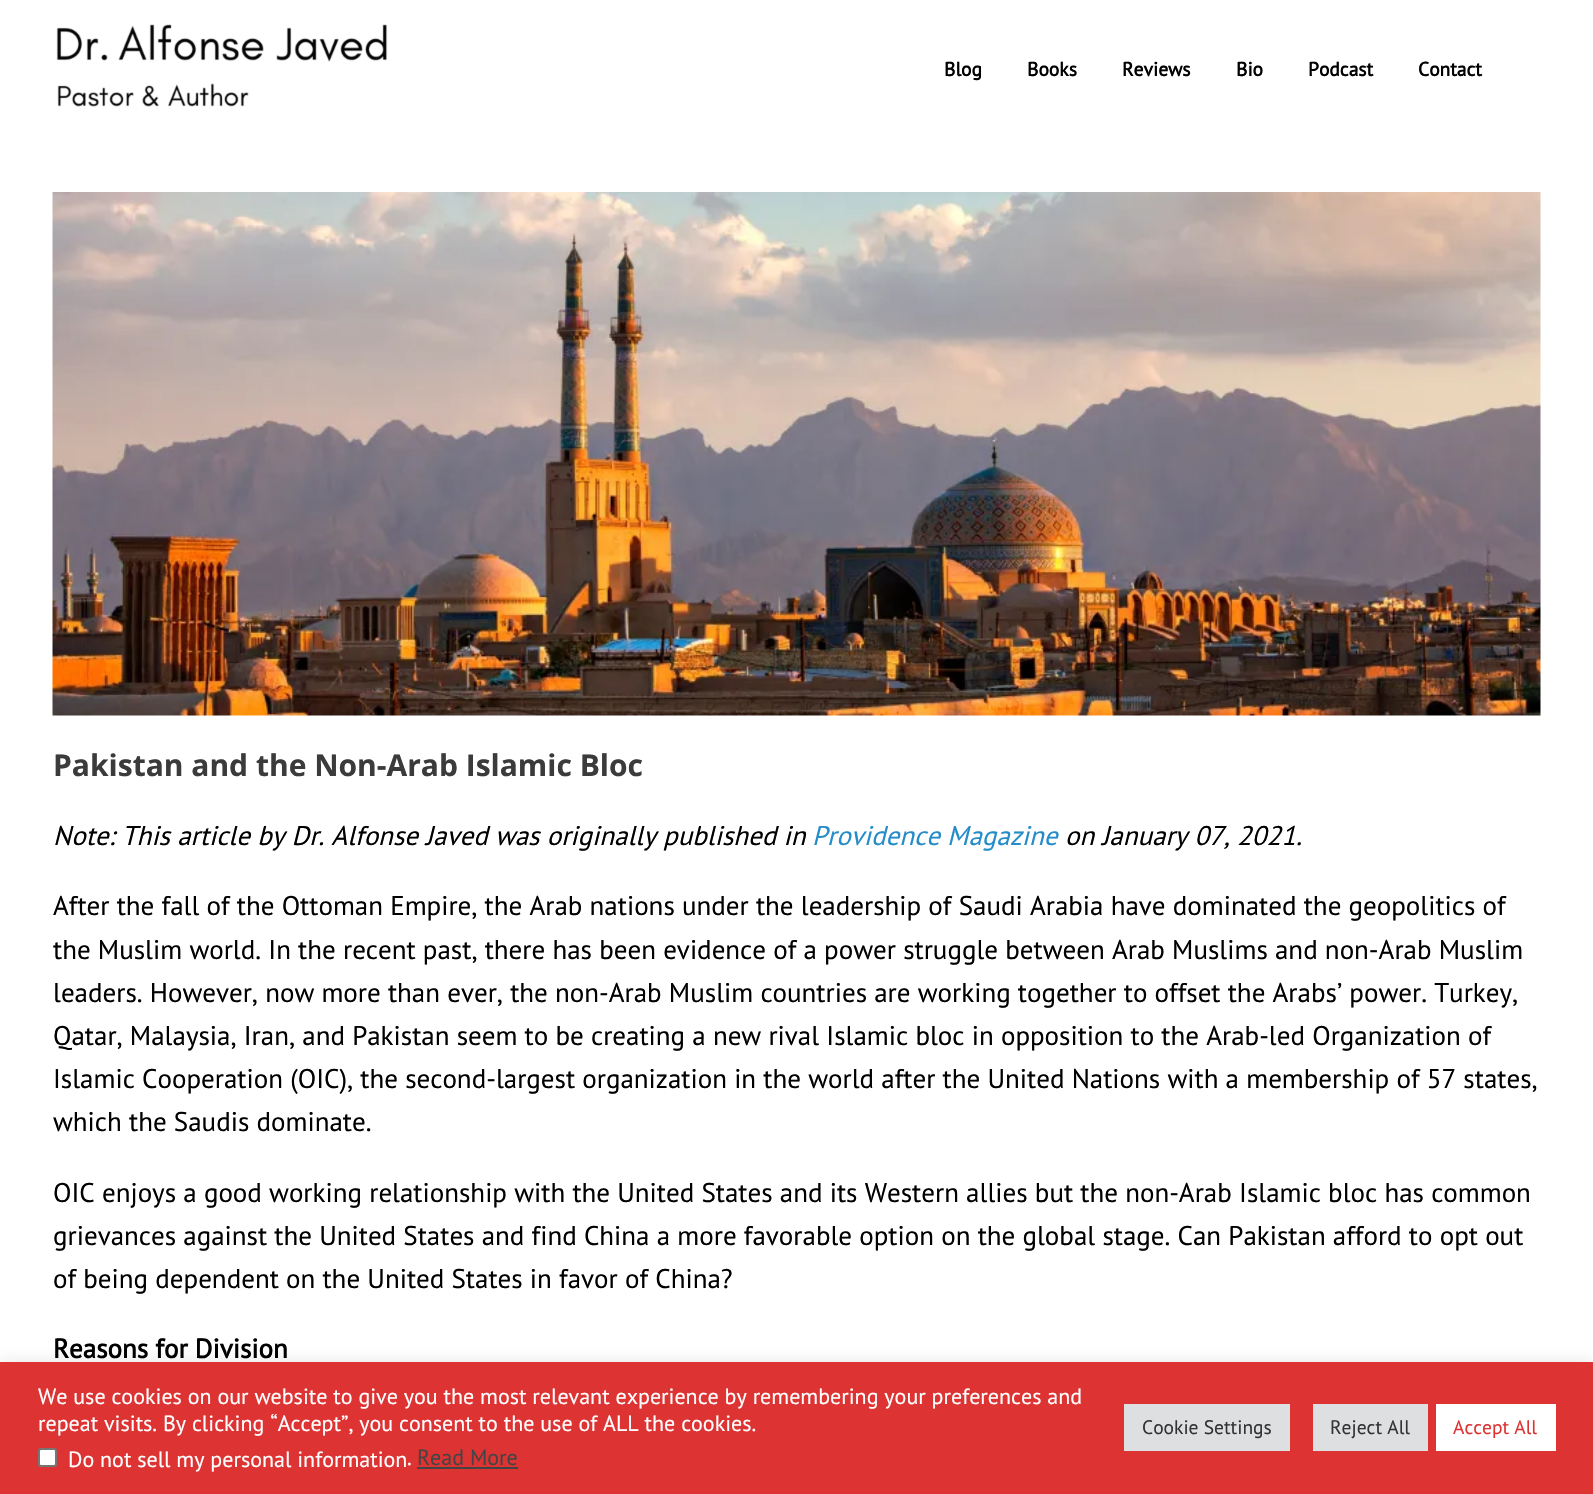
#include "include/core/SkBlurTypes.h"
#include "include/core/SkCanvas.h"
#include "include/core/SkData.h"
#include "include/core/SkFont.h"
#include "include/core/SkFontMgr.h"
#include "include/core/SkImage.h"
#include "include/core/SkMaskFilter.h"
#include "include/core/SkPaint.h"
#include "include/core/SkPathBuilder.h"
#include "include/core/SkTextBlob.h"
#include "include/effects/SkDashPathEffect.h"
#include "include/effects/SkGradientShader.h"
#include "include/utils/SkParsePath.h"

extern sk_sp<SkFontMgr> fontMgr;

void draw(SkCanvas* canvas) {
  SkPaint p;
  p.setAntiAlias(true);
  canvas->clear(SK_ColorWHITE);
  canvas->drawImageRect(SkImages::DeferredFromEncodedData(SkData::MakeFromFileName("images/1.png")), SkRect::MakeLTRB(56, 24, 388, 107), SkSamplingOptions());
  canvas->drawImageRect(SkImages::DeferredFromEncodedData(SkData::MakeFromFileName("images/2.png")), SkRect::MakeLTRB(52, 192, 1541, 716), SkSamplingOptions());
  p.setColor(SkColorSetARGB(77, 172, 171, 171));
  p.setMaskFilter(SkMaskFilter::MakeBlur(kNormal_SkBlurStyle, 7.5f));
  canvas->drawRect(SkRect::MakeLTRB(0, 1361, 1593, 1493), p);
  p.setMaskFilter(nullptr);
  p.setColor(SkColorSetRGB(221, 51, 51));
  canvas->drawRect(SkRect::MakeLTRB(0, 1362, 1593, 1494), p);
  p.setColor(SK_ColorWHITE);
  canvas->drawRoundRect(SkRect::MakeLTRB(39, 1449, 56, 1466), 2, 2, p);
  p.setStyle(SkPaint::kStroke_Style);
  p.setStrokeWidth(2);
  p.setColor(SkColorSetRGB(118, 118, 118));
  canvas->drawRoundRect(SkRect::MakeLTRB(39, 1449, 56, 1466), 2, 2, p);
  p.setStyle(SkPaint::kFill_Style);
  p.setColor(SkColorSetRGB(68, 68, 68));
  canvas->drawRect(SkRect::MakeLTRB(417, 1467, 518, 1469), p);
  p.setColor(SkColorSetRGB(222, 223, 224));
  canvas->drawRect(SkRect::MakeLTRB(1124, 1404, 1290, 1451), p);
  canvas->drawRect(SkRect::MakeLTRB(1313, 1404, 1428, 1451), p);
  p.setColor(SK_ColorWHITE);
  canvas->drawRect(SkRect::MakeLTRB(1436, 1404, 1556, 1451), p);
  SkFont font1(fontMgr->matchFamilyStyle("PT Sans", SkFontStyle::Bold()), 19.5f);
  font1.setSubpixel(true);
  p.setColor(SK_ColorBLACK);
  canvas->drawString("Blog", 944, 76, font1, p);
  canvas->drawString("Books", 1027, 76, font1, p);
  canvas->drawString("Reviews", 1122, 76, font1, p);
  canvas->drawString("Bio", 1236, 76, font1, p);
  canvas->drawString("Podcast", 1308, 76, font1, p);
  canvas->drawString("Contact", 1418, 76, font1, p);
  SkFont font2(fontMgr->matchFamilyStyle("Open Sans", SkFontStyle::Bold()), 30);
  font2.setSubpixel(true);
  p.setColor(SkColorSetRGB(59, 59, 59));
  canvas->drawString("Pakistan and the Non-Arab Islamic Bloc", 53, 776, font2, p);
  SkFont font3(fontMgr->matchFamilyStyle("PT Sans", SkFontStyle::Italic()), 27);
  font3.setSubpixel(true);
  p.setColor(SK_ColorBLACK);
  canvas->drawString("Note: This article by Dr. Alfonse Javed was originally published in", 53, 845, font3, p);
  p.setColor(SkColorSetRGB(36, 140, 200));
  canvas->drawString("Providence Magazine", 812, 845, font3, p);
  p.setColor(SK_ColorBLACK);
  canvas->drawString("on January 07, 2021.", 1065, 845, font3, p);
  SkFont font4(fontMgr->matchFamilyStyle("PT Sans", SkFontStyle::Normal()), 27);
  font4.setSubpixel(true);
  canvas->drawString("After the fall of the Ottoman Empire, the Arab nations under the leadership of Saudi Arabia have dominated the geopolitics of", 53, 915, font4, p);
  canvas->drawString("the Muslim world. In the recent past, there has been evidence of a power struggle between Arab Muslims and non-Arab Muslim", 53, 959, font4, p);
  canvas->drawString("leaders. However, now more than ever, the non-Arab Muslim countries are working together to offset the Arabs’ power. Turkey,", 53, 1002, font4, p);
  canvas->drawString("Qatar, Malaysia, Iran, and Pakistan seem to be creating a new rival Islamic bloc in opposition to the Arab-led Organization of", 53, 1045, font4, p);
  canvas->drawString("Islamic Cooperation (OIC), the second-largest organization in the world after the United Nations with a membership of 57 states,", 53, 1088, font4, p);
  canvas->drawString("which the Saudis dominate.", 53, 1131, font4, p);
  canvas->drawString("OIC enjoys a good working relationship with the United States and its Western allies but the non-Arab Islamic bloc has common", 53, 1202, font4, p);
  canvas->drawString("grievances against the United States and find China a more favorable option on the global stage. Can Pakistan afford to opt out", 53, 1245, font4, p);
  canvas->drawString("of being dependent on the United States in favor of China?", 53, 1288, font4, p);
  SkFont font5(fontMgr->matchFamilyStyle("PT Sans", SkFontStyle::Bold()), 27);
  font5.setSubpixel(true);
  canvas->drawString("Reasons for Division", 53, 1358, font5, p);
  SkFont font6(fontMgr->matchFamilyStyle("PT Sans", SkFontStyle::Normal()), 22);
  font6.setSubpixel(true);
  p.setColor(SK_ColorWHITE);
  canvas->drawString("We use cookies on our website to give you the most relevant experience by remembering your preferences and", 38, 1404, font6, p);
  canvas->drawString("repeat visits. By clicking “Accept”, you consent to the use of ALL the cookies.", 38, 1431, font6, p);
  canvas->drawString("Do not sell my personal information", 68, 1467, font6, p);
  canvas->drawString(".", 407, 1465, font6, p);
  p.setColor(SkColorSetRGB(68, 68, 68));
  canvas->drawString("Read More", 417, 1465, font6, p);
  SkFont font7(fontMgr->matchFamilyStyle("PT Sans", SkFontStyle::Normal()), 19.5f);
  font7.setSubpixel(true);
  p.setColor(SkColorSetRGB(51, 51, 51));
  canvas->drawString("Cookie Settings", 1142, 1434, font7, p);
  canvas->drawString("Reject All", 1330, 1434, font7, p);
  p.setColor(SkColorSetRGB(221, 51, 51));
  canvas->drawString("Accept All", 1453, 1434, font7, p);
}
